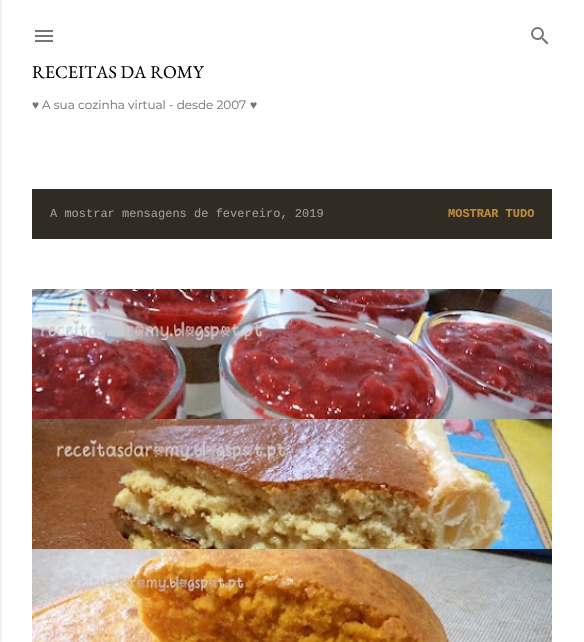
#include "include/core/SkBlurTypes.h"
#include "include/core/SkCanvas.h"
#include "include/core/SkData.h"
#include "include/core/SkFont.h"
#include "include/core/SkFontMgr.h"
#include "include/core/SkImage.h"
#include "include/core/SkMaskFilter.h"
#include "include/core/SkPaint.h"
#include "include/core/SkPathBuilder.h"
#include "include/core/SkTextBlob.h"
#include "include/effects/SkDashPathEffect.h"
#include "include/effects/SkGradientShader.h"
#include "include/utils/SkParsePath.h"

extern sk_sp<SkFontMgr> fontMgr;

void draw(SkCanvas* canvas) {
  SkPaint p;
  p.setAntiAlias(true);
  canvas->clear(SK_ColorWHITE);
  p.setColor(SkColorSetARGB(26, 0, 0, 0));
  p.setMaskFilter(SkMaskFilter::MakeBlur(kNormal_SkBlurStyle, 1.5f));
  canvas->drawRect(SkRect::MakeLTRB(-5, 0, 1, 642), p);
  p.setMaskFilter(nullptr);
  canvas->drawImageRect(SkImages::DeferredFromEncodedData(SkData::MakeFromFileName("images/1.png")), SkRect::MakeLTRB(35, 30, 53, 42), SkSamplingOptions());
  canvas->drawImageRect(SkImages::DeferredFromEncodedData(SkData::MakeFromFileName("images/2.png")), SkRect::MakeLTRB(531, 27, 549, 45), SkSamplingOptions());
  p.setColor(SkColorSetRGB(48, 44, 36));
  canvas->drawRect(SkRect::MakeLTRB(32, 189, 552, 239), p);
  canvas->drawImageRect(SkImages::DeferredFromEncodedData(SkData::MakeFromFileName("images/3.png")), SkRect::MakeLTRB(32, 289, 552, 419), SkSamplingOptions());
  canvas->drawImageRect(SkImages::DeferredFromEncodedData(SkData::MakeFromFileName("images/4.png")), SkRect::MakeLTRB(32, 419, 552, 549), SkSamplingOptions());
  canvas->drawImageRect(SkImages::DeferredFromEncodedData(SkData::MakeFromFileName("images/5.png")), SkRect::MakeLTRB(32, 549, 552, 642), SkSamplingOptions());
  SkFont font1(fontMgr->matchFamilyStyle("EB Garamond", SkFontStyle::Normal()), 18);
  font1.setSubpixel(true);
  p.setColor(SK_ColorBLACK);
  canvas->drawString("RECEITAS DA ROMY", 32, 78, font1, p);
  SkFont font2(fontMgr->matchFamilyStyle("Liberation Sans", SkFontStyle::Normal()), 12);
  font2.setSubpixel(true);
  p.setColor(SkColorSetRGB(117, 117, 117));
  canvas->drawString("♥", 32, 109, font2, p);
  SkFont font3(fontMgr->matchFamilyStyle("Montserrat", SkFontStyle::Normal()), 12);
  font3.setSubpixel(true);
  canvas->drawString("A sua cozinha virtual - desde 2007", 42, 109, font3, p);
  canvas->drawString("♥", 250, 109, font2, p);
  SkFont font4(fontMgr->matchFamilyStyle("Liberation Mono", SkFontStyle::Normal()), 12);
  font4.setSubpixel(true);
  p.setColor(SkColorSetRGB(160, 158, 154));
  canvas->drawString("A mostrar mensagens de fevereiro, 2019", 50, 217, font4, p);
  SkFont font5(fontMgr->matchFamilyStyle("Liberation Mono", SkFontStyle::Bold()), 12);
  font5.setSubpixel(true);
  p.setColor(SkColorSetRGB(191, 139, 56));
  canvas->drawString("MOSTRAR TUDO", 448, 217, font5, p);
}
